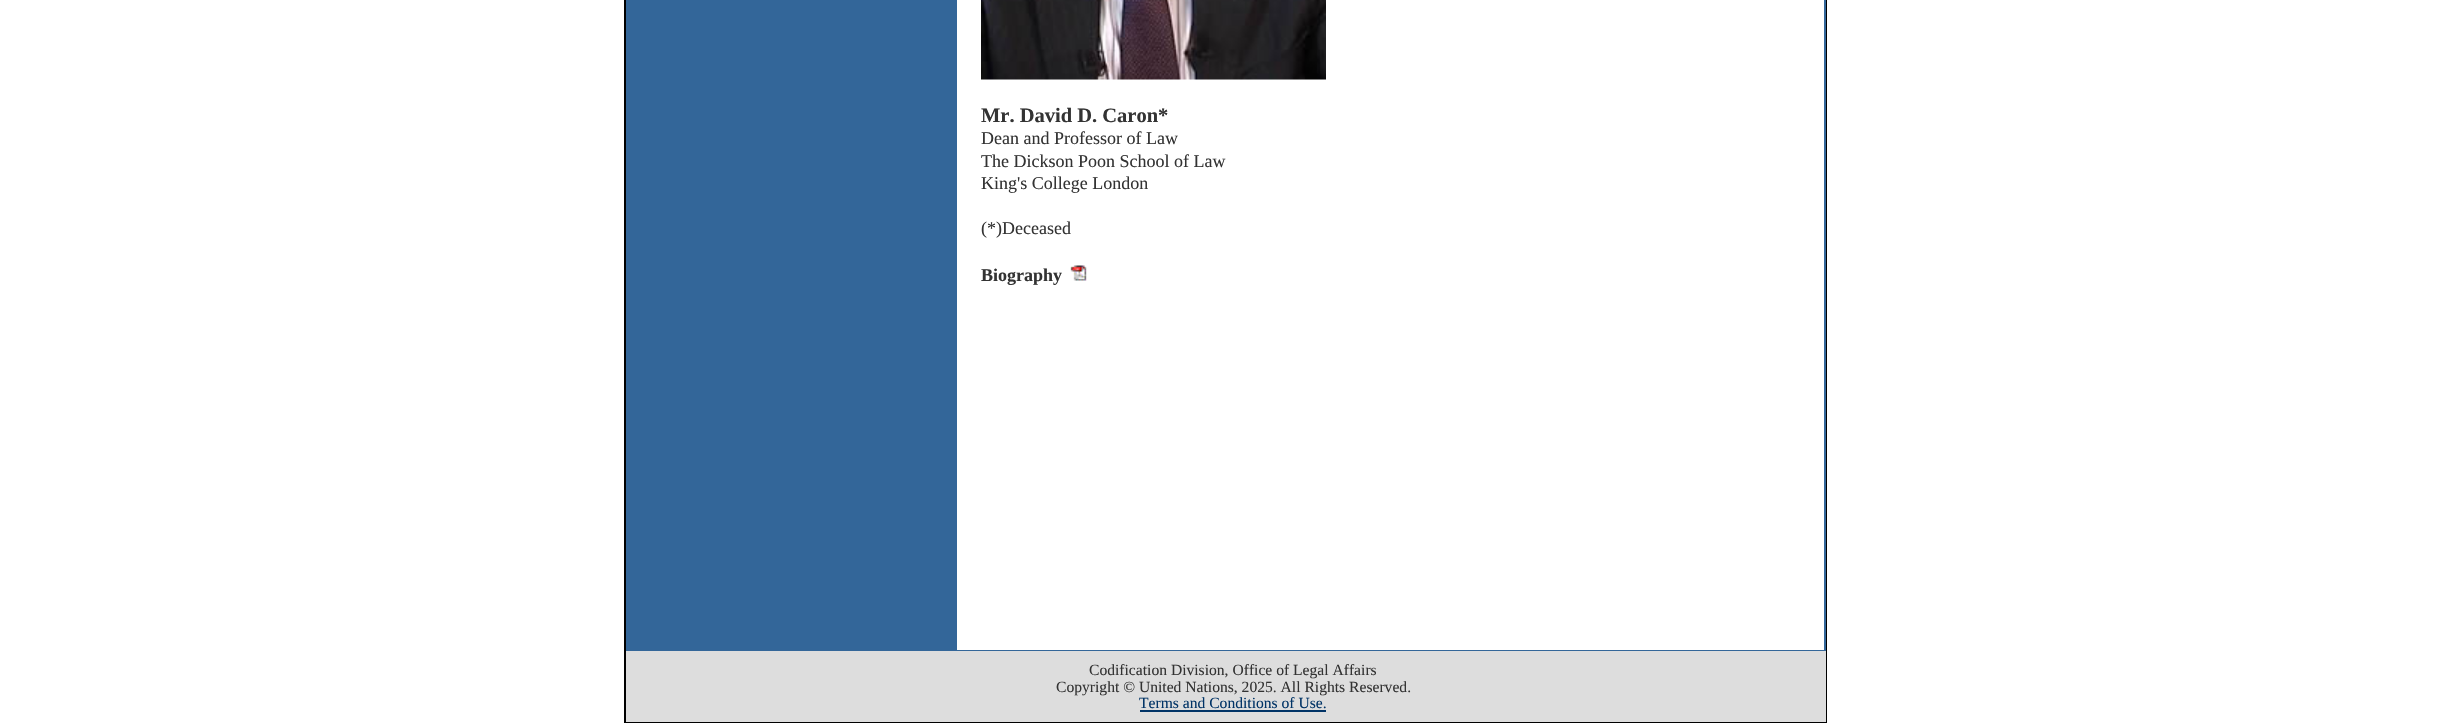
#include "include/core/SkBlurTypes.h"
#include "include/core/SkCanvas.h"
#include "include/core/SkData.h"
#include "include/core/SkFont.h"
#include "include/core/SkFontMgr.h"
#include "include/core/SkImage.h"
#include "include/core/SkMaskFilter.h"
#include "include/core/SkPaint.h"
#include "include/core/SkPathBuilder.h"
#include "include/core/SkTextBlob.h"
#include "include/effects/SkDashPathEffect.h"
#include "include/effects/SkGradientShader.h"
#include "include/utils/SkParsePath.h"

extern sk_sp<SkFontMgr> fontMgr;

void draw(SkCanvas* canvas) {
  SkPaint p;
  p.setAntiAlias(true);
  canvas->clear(SK_ColorWHITE);
  p.setStyle(SkPaint::kStroke_Style);
  p.setStrokeWidth(2);
  p.setColor(SK_ColorBLACK);
  canvas->drawRect(SkRect::MakeLTRB(625, -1, 1826, 722), p);
  p.setStyle(SkPaint::kFill_Style);
  p.setColor(SkColorSetRGB(51, 102, 153));
  canvas->drawRect(SkRect::MakeLTRB(626, 0, 1826, 651), p);
  p.setColor(SK_ColorWHITE);
  canvas->drawRect(SkRect::MakeLTRB(957, 0, 1824, 650), p);
  canvas->drawImageRect(SkImages::DeferredFromEncodedData(SkData::MakeFromFileName("images/1.png")), SkRect::MakeLTRB(981, 0, 1326, 80), SkSamplingOptions());
  canvas->drawImageRect(SkImages::DeferredFromEncodedData(SkData::MakeFromFileName("images/2.png")), SkRect::MakeLTRB(1070, 265, 1087, 281), SkSamplingOptions());
  p.setColor(SkColorSetRGB(221, 221, 221));
  canvas->drawRect(SkRect::MakeLTRB(626, 651, 1826, 722), p);
  p.setColor(SkColorSetRGB(0, 51, 102));
  canvas->drawRect(SkRect::MakeLTRB(1140, 710, 1326, 712), p);
  SkFont font1(fontMgr->matchFamilyStyle("Liberation Serif", SkFontStyle::Bold()), 20.5f);
  font1.setSubpixel(true);
  p.setColor(SkColorSetRGB(51, 51, 51));
  canvas->drawString("Mr. David D. Caron*", 981, 122, font1, p);
  SkFont font2(fontMgr->matchFamilyStyle("Liberation Serif", SkFontStyle::Normal()), 18);
  font2.setSubpixel(true);
  canvas->drawString("Dean and Professor of Law", 981, 144, font2, p);
  canvas->drawString("The Dickson Poon School of Law", 981, 167, font2, p);
  canvas->drawString("King's College London", 981, 189, font2, p);
  canvas->drawString("(*)Deceased", 981, 234, font2, p);
  SkFont font3(fontMgr->matchFamilyStyle("Liberation Serif", SkFontStyle::Bold()), 18);
  font3.setSubpixel(true);
  canvas->drawString("Biography", 981, 281, font3, p);
  SkFont font4(fontMgr->matchFamilyStyle("Liberation Serif", SkFontStyle::Normal()), 15.6f);
  font4.setSubpixel(true);
  canvas->drawString("Codification Division, Office of Legal Affairs", 1089, 675, font4, p);
  canvas->drawString("Copyright © United Nations, 2025. All Rights Reserved.", 1056, 692, font4, p);
  p.setColor(SkColorSetRGB(0, 51, 102));
  canvas->drawString("Terms and Conditions of Use.", 1139, 708, font4, p);
}
